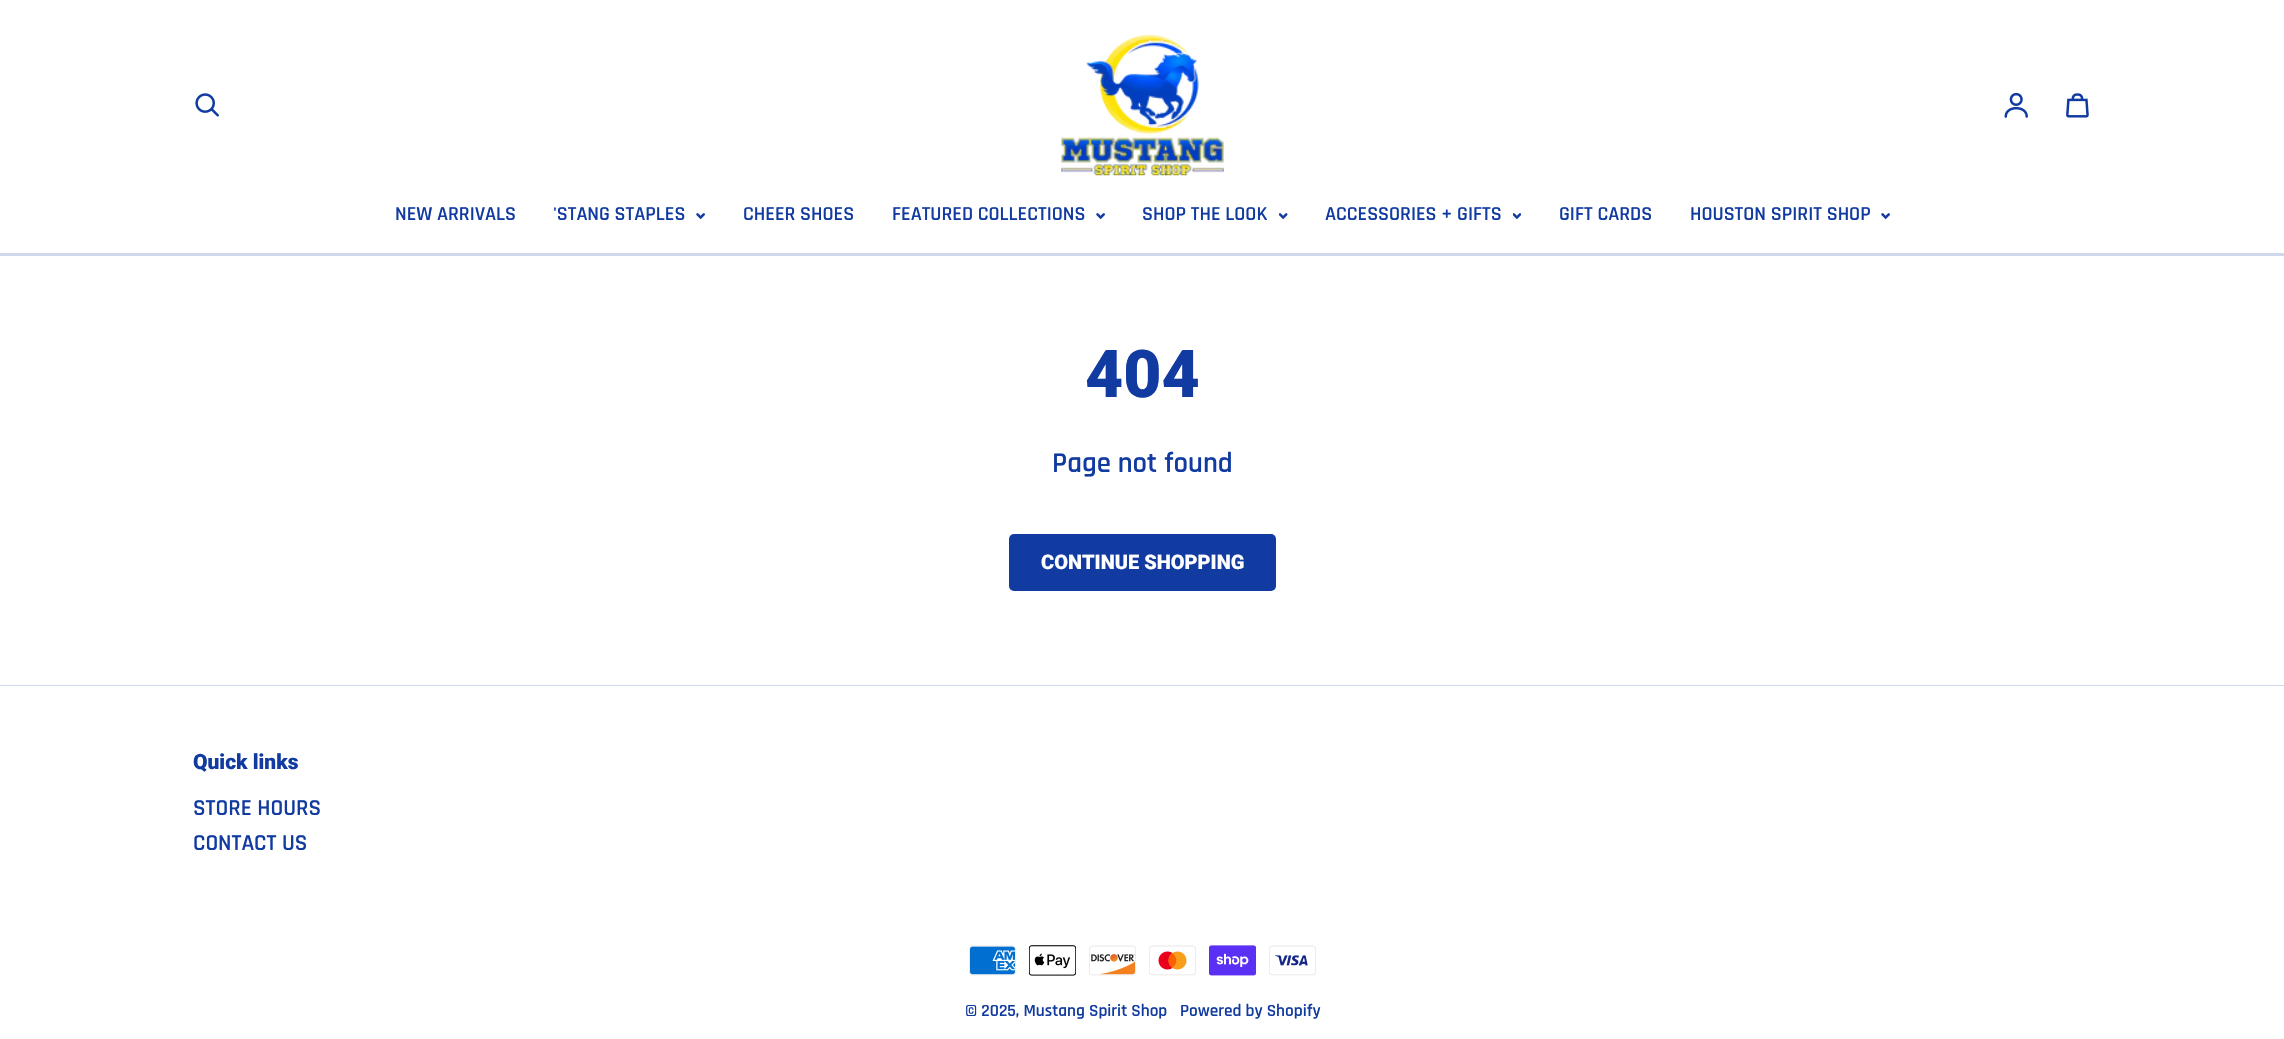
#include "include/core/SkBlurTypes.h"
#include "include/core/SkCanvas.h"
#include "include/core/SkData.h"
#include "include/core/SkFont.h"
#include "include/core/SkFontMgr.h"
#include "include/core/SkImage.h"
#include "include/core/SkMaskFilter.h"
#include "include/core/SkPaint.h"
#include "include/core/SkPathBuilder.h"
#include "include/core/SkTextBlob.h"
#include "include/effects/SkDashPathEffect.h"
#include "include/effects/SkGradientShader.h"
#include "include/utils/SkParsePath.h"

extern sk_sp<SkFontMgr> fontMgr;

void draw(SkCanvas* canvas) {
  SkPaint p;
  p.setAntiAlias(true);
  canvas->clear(SK_ColorWHITE);
  canvas->drawImageRect(SkImages::DeferredFromEncodedData(SkData::MakeFromFileName("images/1.png")), SkRect::MakeLTRB(195, 93, 219, 117), SkSamplingOptions());
  canvas->drawImageRect(SkImages::DeferredFromEncodedData(SkData::MakeFromFileName("images/2.png")), SkRect::MakeLTRB(1061, 35, 1224, 176), SkSamplingOptions());
  canvas->drawImageRect(SkImages::DeferredFromEncodedData(SkData::MakeFromFileName("images/3.png")), SkRect::MakeLTRB(2004, 92, 2028, 118), SkSamplingOptions());
  canvas->drawImageRect(SkImages::DeferredFromEncodedData(SkData::MakeFromFileName("images/4.png")), SkRect::MakeLTRB(2066, 93, 2089, 118), SkSamplingOptions());
  canvas->drawImageRect(SkImages::DeferredFromEncodedData(SkData::MakeFromFileName("images/5.png")), SkRect::MakeLTRB(696, 213, 705, 220), SkSamplingOptions());
  canvas->drawImageRect(SkImages::DeferredFromEncodedData(SkData::MakeFromFileName("images/5.png")), SkRect::MakeLTRB(1096, 213, 1105, 220), SkSamplingOptions());
  canvas->drawImageRect(SkImages::DeferredFromEncodedData(SkData::MakeFromFileName("images/6.png")), SkRect::MakeLTRB(1279, 213, 1288, 220), SkSamplingOptions());
  canvas->drawImageRect(SkImages::DeferredFromEncodedData(SkData::MakeFromFileName("images/7.png")), SkRect::MakeLTRB(1513, 213, 1521, 220), SkSamplingOptions());
  canvas->drawImageRect(SkImages::DeferredFromEncodedData(SkData::MakeFromFileName("images/5.png")), SkRect::MakeLTRB(1881, 213, 1890, 220), SkSamplingOptions());
  p.setColor(SkColorSetRGB(208, 216, 236));
  canvas->drawRect(SkRect::MakeLTRB(0, 253, 2284, 256), p);
  p.setColor(SkColorSetRGB(18, 59, 161));
  canvas->drawRoundRect(SkRect::MakeLTRB(1009, 534, 1276, 591), 5, 5, p);
  p.setColor(SkColorSetRGB(208, 216, 236));
  canvas->drawRect(SkRect::MakeLTRB(0, 685, 2284, 686), p);
  canvas->drawImageRect(SkImages::DeferredFromEncodedData(SkData::MakeFromFileName("images/8.png")), SkRect::MakeLTRB(969, 945, 1016, 976), SkSamplingOptions());
  canvas->drawImageRect(SkImages::DeferredFromEncodedData(SkData::MakeFromFileName("images/9.png")), SkRect::MakeLTRB(1029, 945, 1076, 976), SkSamplingOptions());
  canvas->drawImageRect(SkImages::DeferredFromEncodedData(SkData::MakeFromFileName("images/10.png")), SkRect::MakeLTRB(1089, 945, 1136, 976), SkSamplingOptions());
  canvas->drawImageRect(SkImages::DeferredFromEncodedData(SkData::MakeFromFileName("images/11.png")), SkRect::MakeLTRB(1149, 945, 1196, 976), SkSamplingOptions());
  canvas->drawImageRect(SkImages::DeferredFromEncodedData(SkData::MakeFromFileName("images/12.png")), SkRect::MakeLTRB(1209, 945, 1256, 976), SkSamplingOptions());
  canvas->drawImageRect(SkImages::DeferredFromEncodedData(SkData::MakeFromFileName("images/13.png")), SkRect::MakeLTRB(1269, 945, 1316, 976), SkSamplingOptions());
  SkFont font1(fontMgr->matchFamilyStyle("Rajdhani", SkFontStyle(600, SkFontStyle::kNormal_Width, SkFontStyle::kUpright_Slant)), 20);
  font1.setSubpixel(true);
  p.setColor(SkColorSetRGB(18, 59, 161));
  canvas->drawString("NEW ARRIVALS", 395, 220, font1, p);
  canvas->drawString("'STANG STAPLES", 553, 220, font1, p);
  canvas->drawString("CHEER SHOES", 743, 220, font1, p);
  canvas->drawString("FEATURED COLLECTIONS", 892, 220, font1, p);
  canvas->drawString("SHOP THE LOOK", 1142, 220, font1, p);
  canvas->drawString("ACCESSORIES + GIFTS", 1325, 220, font1, p);
  canvas->drawString("GIFT CARDS", 1559, 220, font1, p);
  canvas->drawString("HOUSTON SPIRIT SHOP", 1690, 220, font1, p);
  SkFont font2(fontMgr->matchFamilyStyle("Roboto", SkFontStyle(900, SkFontStyle::kNormal_Width, SkFontStyle::kUpright_Slant)), 66);
  font2.setSubpixel(true);
  canvas->drawString("404", 1085, 397, font2, p);
  SkFont font3(fontMgr->matchFamilyStyle("Rajdhani", SkFontStyle(600, SkFontStyle::kNormal_Width, SkFontStyle::kUpright_Slant)), 28.75f);
  font3.setSubpixel(true);
  canvas->drawString("Page not found", 1052, 472, font3, p);
  SkFont font4(fontMgr->matchFamilyStyle("Roboto", SkFontStyle(900, SkFontStyle::kNormal_Width, SkFontStyle::kUpright_Slant)), 20);
  font4.setSubpixel(true);
  p.setColor(SK_ColorWHITE);
  canvas->drawString("CONTINUE SHOPPING", 1041, 569, font4, p);
  SkFont font5(fontMgr->matchFamilyStyle("Roboto", SkFontStyle(900, SkFontStyle::kNormal_Width, SkFontStyle::kUpright_Slant)), 21);
  font5.setSubpixel(true);
  p.setColor(SkColorSetRGB(18, 59, 161));
  canvas->drawString("Quick links", 193, 769, font5, p);
  SkFont font6(fontMgr->matchFamilyStyle("Rajdhani", SkFontStyle(600, SkFontStyle::kNormal_Width, SkFontStyle::kUpright_Slant)), 23);
  font6.setSubpixel(true);
  canvas->drawString("STORE HOURS", 193, 815, font6, p);
  canvas->drawString("CONTACT US", 193, 850, font6, p);
  SkFont font7(fontMgr->matchFamilyStyle("Rajdhani", SkFontStyle(600, SkFontStyle::kNormal_Width, SkFontStyle::kUpright_Slant)), 17.25f);
  font7.setSubpixel(true);
  canvas->drawString("© 2025, Mustang Spirit Shop", 965, 1016, font7, p);
  canvas->drawString("Powered by Shopify", 1180, 1016, font7, p);
}
